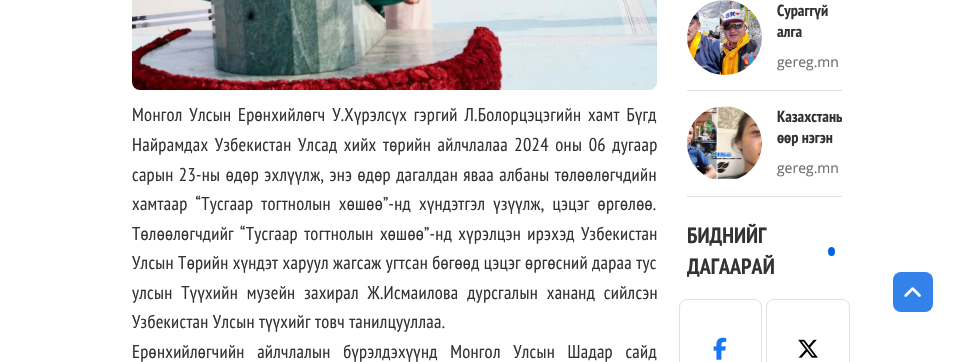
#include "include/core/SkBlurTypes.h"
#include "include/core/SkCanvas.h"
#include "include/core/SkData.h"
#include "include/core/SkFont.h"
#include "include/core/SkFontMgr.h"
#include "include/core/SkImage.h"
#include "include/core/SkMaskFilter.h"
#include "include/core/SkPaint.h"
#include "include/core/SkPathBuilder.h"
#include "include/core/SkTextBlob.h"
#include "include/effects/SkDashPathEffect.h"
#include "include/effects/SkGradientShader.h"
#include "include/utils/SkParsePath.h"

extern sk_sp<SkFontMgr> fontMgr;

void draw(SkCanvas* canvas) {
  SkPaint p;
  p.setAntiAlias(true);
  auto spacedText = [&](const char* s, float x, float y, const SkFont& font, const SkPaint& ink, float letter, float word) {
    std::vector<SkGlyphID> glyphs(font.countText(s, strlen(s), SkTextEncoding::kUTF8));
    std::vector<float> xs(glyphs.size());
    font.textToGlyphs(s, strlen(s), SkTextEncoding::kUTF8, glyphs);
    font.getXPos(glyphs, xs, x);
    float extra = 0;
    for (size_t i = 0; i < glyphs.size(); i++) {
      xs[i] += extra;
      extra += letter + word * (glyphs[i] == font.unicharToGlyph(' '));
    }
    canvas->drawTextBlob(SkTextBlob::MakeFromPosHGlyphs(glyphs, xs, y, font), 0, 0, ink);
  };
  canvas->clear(SK_ColorWHITE);
  canvas->drawImageRect(SkImages::DeferredFromEncodedData(SkData::MakeFromFileName("images/1.png")), SkRect::MakeLTRB(132, 0, 657, 90), SkSamplingOptions());
  p.setColor(SkColorSetRGB(225, 225, 225));
  canvas->drawRect(SkRect::MakeLTRB(687, 90, 842, 91), p);
  canvas->drawImageRect(SkImages::DeferredFromEncodedData(SkData::MakeFromFileName("images/2.png")), SkRect::MakeLTRB(687, 0, 762, 75), SkSamplingOptions());
  canvas->drawRect(SkRect::MakeLTRB(687, 196, 842, 197), p);
  canvas->drawImageRect(SkImages::DeferredFromEncodedData(SkData::MakeFromFileName("images/3.png")), SkRect::MakeLTRB(687, 106, 762, 179), SkSamplingOptions());
  p.setColor(SkColorSetRGB(0, 99, 227));
  canvas->drawOval(SkRect::MakeLTRB(828, 247, 835, 256), p);
  p.setStyle(SkPaint::kStroke_Style);
  p.setStrokeWidth(1);
  p.setColor(SkColorSetRGB(225, 225, 225));
  canvas->drawRoundRect(SkRect::MakeLTRB(679.5f, 299.5f, 761.5f, 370.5f), 7.5f, 7.5f, p);
  canvas->drawImageRect(SkImages::DeferredFromEncodedData(SkData::MakeFromFileName("images/4.png")), SkRect::MakeLTRB(713, 337, 727, 360), SkSamplingOptions());
  canvas->drawRoundRect(SkRect::MakeLTRB(766.5f, 299.5f, 849.5f, 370.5f), 7.5f, 7.5f, p);
  canvas->drawImageRect(SkImages::DeferredFromEncodedData(SkData::MakeFromFileName("images/5.png")), SkRect::MakeLTRB(798, 339, 818, 358), SkSamplingOptions());
  p.setStyle(SkPaint::kFill_Style);
  p.setColor(SkColorSetRGB(51, 130, 233));
  canvas->drawRoundRect(SkRect::MakeLTRB(893, 272, 933, 312), 8, 8, p);
  canvas->drawImageRect(SkImages::DeferredFromEncodedData(SkData::MakeFromFileName("images/6.png")), SkRect::MakeLTRB(904, 287, 921, 297), SkSamplingOptions());
  SkFont font1(fontMgr->matchFamilyStyle("PT Sans Narrow", SkFontStyle::Normal()), 18.5f);
  font1.setSubpixel(true);
  p.setColor(SkColorSetRGB(51, 51, 51));
  spacedText("Монгол Улсын Ерөнхийлөгч У.Хүрэлсүх гэргий Л.Болорцэцэгийн хамт Бүгд", 132, 121, font1, p, 0.3f, 2.5f);
  spacedText("Найрамдах Узбекистан Улсад хийх төрийн айлчлалаа 2024 оны 06 дугаар", 132, 151, font1, p, 0.3f, 2.25f);
  spacedText("сарын 23-ны өдөр эхлүүлж, энэ өдөр дагалдан яваа албаны төлөөлөгчдийн", 132, 181, font1, p, 0.3f, 1.1f);
  spacedText("хамтаар “Тусгаар тогтнолын хөшөө”-нд хүндэтгэл үзүүлж, цэцэг өргөлөө.", 132, 210, font1, p, 0.3f, 3.75f);
  spacedText("Төлөөлөгчдийг “Тусгаар тогтнолын хөшөө”-нд хүрэлцэн ирэхэд Узбекистан", 132, 240, font1, p, 0.3f, 2);
  spacedText("Улсын Төрийн хүндэт харуул жагсаж угтсан бөгөөд цэцэг өргөсний дараа тус", 132, 269, font1, p, 0.3f, 0);
  spacedText("улсын Түүхийн музейн захирал Ж.Исмаилова дурсгалын хананд сийлсэн", 132, 299, font1, p, 0.3f, 4.5f);
  spacedText("Узбекистан Улсын түүхийг товч танилцууллаа.", 132, 328, font1, p, 0.3f, 0);
  spacedText("Ерөнхийлөгчийн айлчлалын бүрэлдэхүүнд Монгол Улсын Шадар сайд", 132, 358, font1, p, 0.3f, 8.25f);
  SkFont font2(fontMgr->matchFamilyStyle("PT Sans Narrow", SkFontStyle::Bold()), 16);
  font2.setSubpixel(true);
  canvas->drawString("Сураггүй", 777, 16, font2, p);
  canvas->drawString("алга", 777, 37, font2, p);
  SkFont font3(fontMgr->matchFamilyStyle("Open Sans", SkFontStyle::Normal()), 14);
  font3.setSubpixel(true);
  p.setColor(SkColorSetRGB(107, 108, 110));
  canvas->drawString("gereg.mn", 777, 67, font3, p);
  canvas->save();
  canvas->clipRect(SkRect::MakeLTRB(777, 106, 842, 146));
  p.setColor(SkColorSetRGB(51, 51, 51));
  canvas->drawString("Казахстаны", 777, 122, font2, p);
  canvas->drawString("өөр нэгэн", 777, 143, font2, p);
  canvas->restore();
  p.setColor(SkColorSetRGB(107, 108, 110));
  canvas->drawString("gereg.mn", 777, 173, font3, p);
  SkFont font4(fontMgr->matchFamilyStyle("PT Sans Narrow", SkFontStyle::Bold()), 22);
  font4.setSubpixel(true);
  p.setColor(SkColorSetRGB(51, 51, 51));
  canvas->drawString("БИДНИЙГ", 687, 243, font4, p);
  canvas->drawString("ДАГААРАЙ", 687, 274, font4, p);
}
